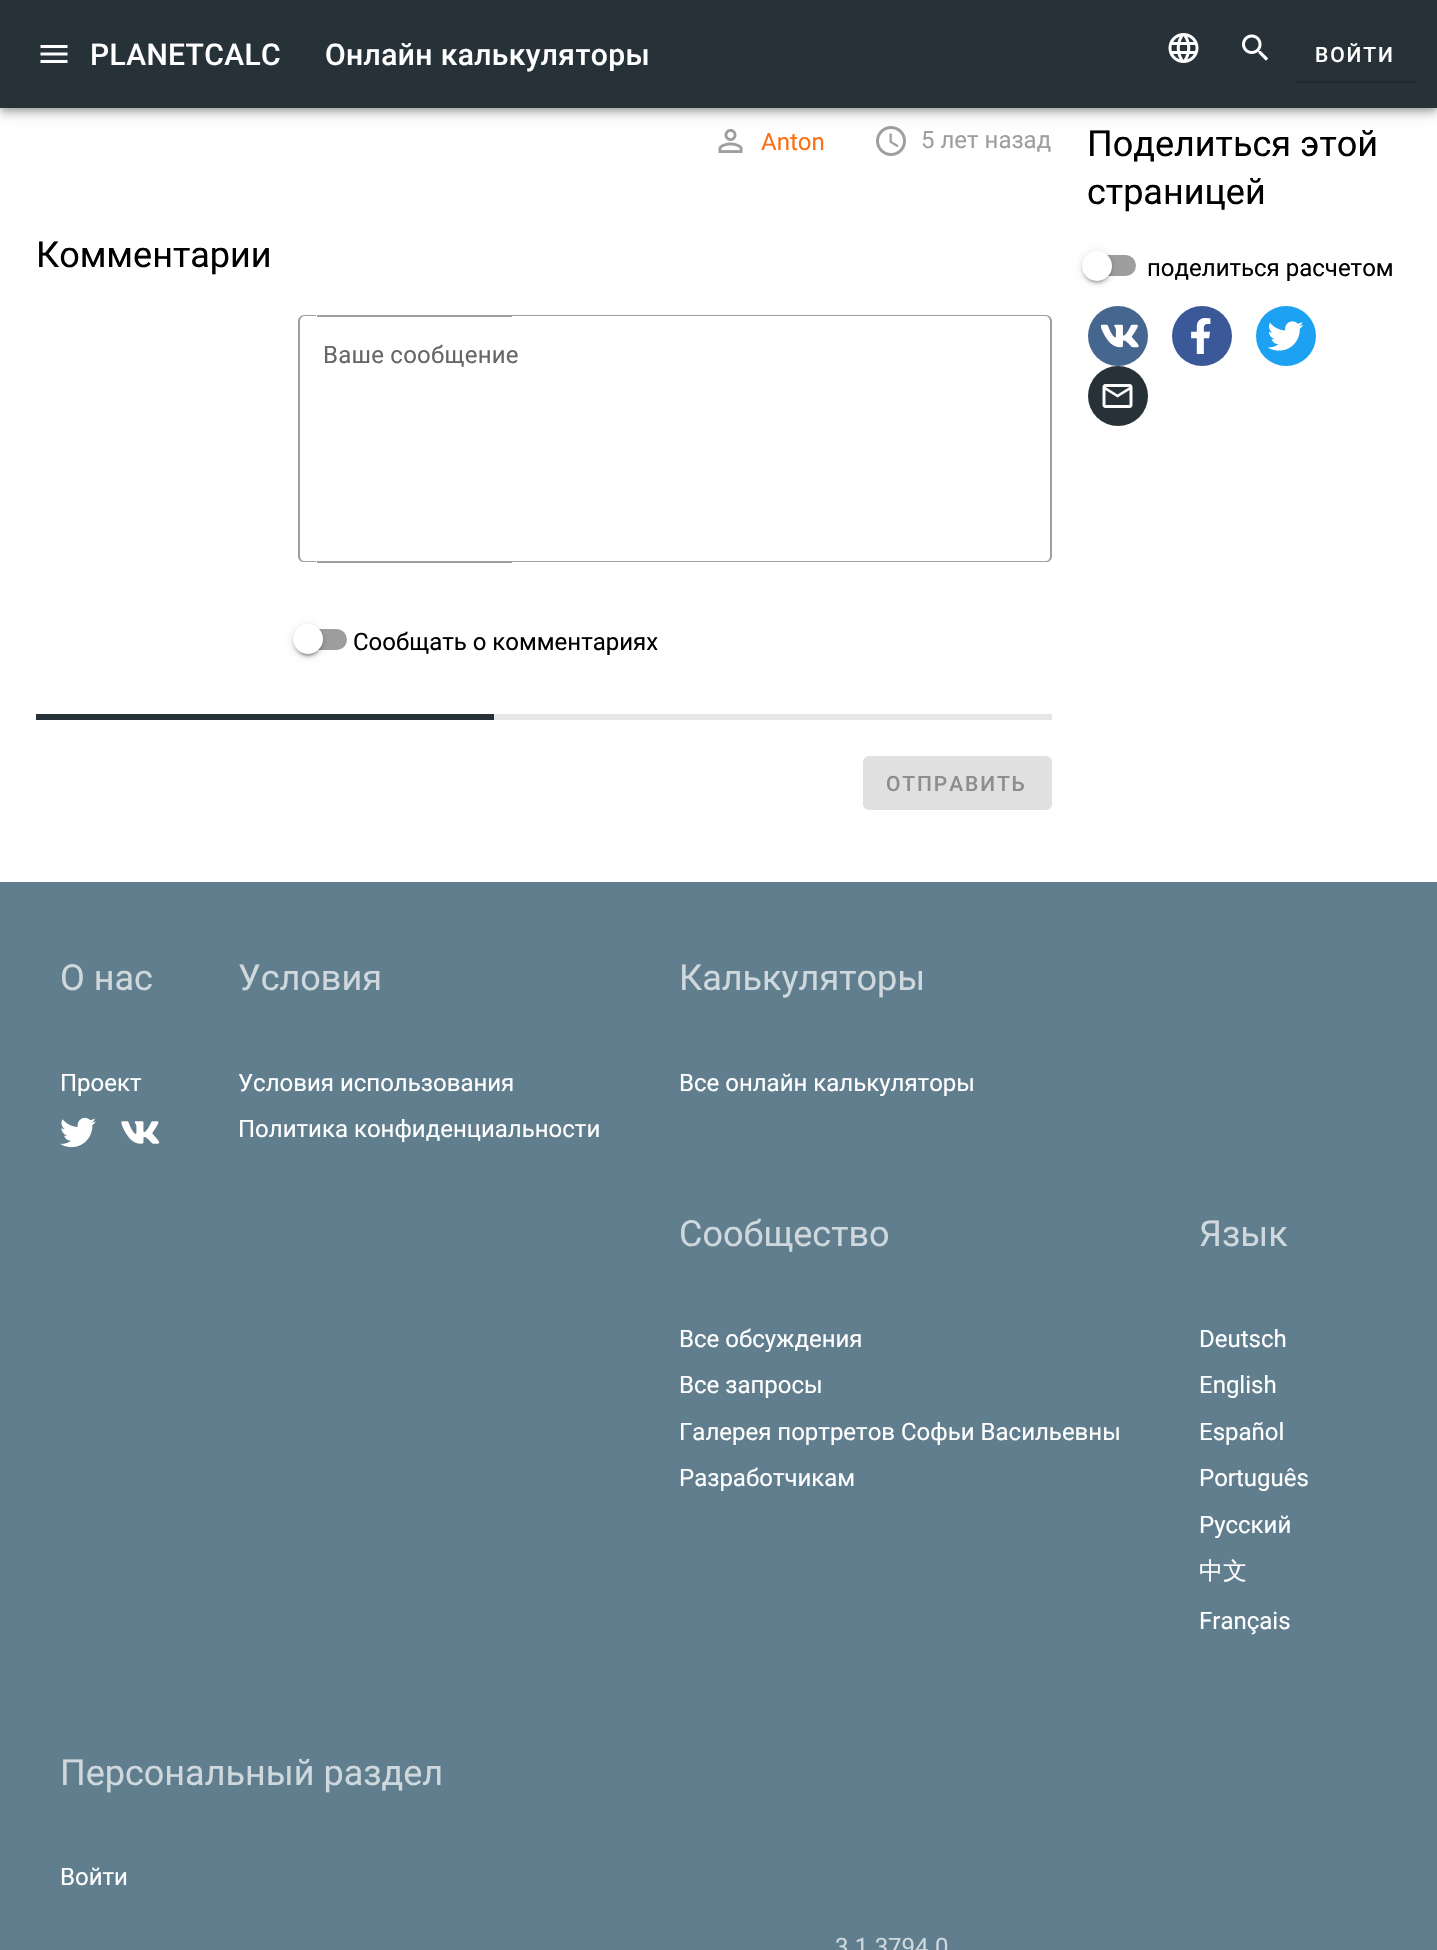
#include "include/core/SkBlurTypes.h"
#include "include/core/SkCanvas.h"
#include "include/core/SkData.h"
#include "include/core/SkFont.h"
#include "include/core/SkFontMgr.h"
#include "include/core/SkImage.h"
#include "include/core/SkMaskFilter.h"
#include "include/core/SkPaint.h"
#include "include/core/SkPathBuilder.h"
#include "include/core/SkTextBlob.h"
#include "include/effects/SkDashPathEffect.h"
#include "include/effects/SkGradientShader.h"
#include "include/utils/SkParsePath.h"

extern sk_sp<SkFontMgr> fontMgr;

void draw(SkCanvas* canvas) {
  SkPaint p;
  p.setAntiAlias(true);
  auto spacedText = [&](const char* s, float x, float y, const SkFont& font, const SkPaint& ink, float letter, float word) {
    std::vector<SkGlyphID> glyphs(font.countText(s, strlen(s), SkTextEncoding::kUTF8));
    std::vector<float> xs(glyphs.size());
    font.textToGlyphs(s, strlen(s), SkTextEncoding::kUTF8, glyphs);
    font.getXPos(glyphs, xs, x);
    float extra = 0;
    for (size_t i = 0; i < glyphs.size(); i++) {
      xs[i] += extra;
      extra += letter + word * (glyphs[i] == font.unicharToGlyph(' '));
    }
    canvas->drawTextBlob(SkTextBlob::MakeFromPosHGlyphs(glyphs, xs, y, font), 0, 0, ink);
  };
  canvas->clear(SK_ColorWHITE);
  canvas->drawImageRect(SkImages::DeferredFromEncodedData(SkData::MakeFromFileName("images/4.png")), SkRect::MakeLTRB(718, 129, 743, 153), SkSamplingOptions());
  canvas->drawImageRect(SkImages::DeferredFromEncodedData(SkData::MakeFromFileName("images/5.png")), SkRect::MakeLTRB(876, 126, 906, 156), SkSamplingOptions());
  p.setColor(SkColorSetARGB(31, 0, 0, 0));
  p.setMaskFilter(SkMaskFilter::MakeBlur(kNormal_SkBlurStyle, 7.5f));
  canvas->drawRect(SkRect::MakeLTRB(0, 2, 1437, 110), p);
  p.setMaskFilter(nullptr);
  p.setColor(SkColorSetARGB(36, 0, 0, 0));
  p.setMaskFilter(SkMaskFilter::MakeBlur(kNormal_SkBlurStyle, 4));
  canvas->drawRect(SkRect::MakeLTRB(0, 6, 1437, 114), p);
  p.setMaskFilter(nullptr);
  p.setColor(SkColorSetARGB(51, 0, 0, 0));
  p.setMaskFilter(SkMaskFilter::MakeBlur(kNormal_SkBlurStyle, 3));
  canvas->drawRect(SkRect::MakeLTRB(2, 5, 1436, 110), p);
  p.setMaskFilter(nullptr);
  p.setColor(SkColorSetRGB(38, 50, 56));
  canvas->drawRect(SkRect::MakeLTRB(0, 0, 1437, 108), p);
  canvas->drawImageRect(SkImages::DeferredFromEncodedData(SkData::MakeFromFileName("images/1.png")), SkRect::MakeLTRB(40, 45, 68, 63), SkSamplingOptions());
  canvas->drawImageRect(SkImages::DeferredFromEncodedData(SkData::MakeFromFileName("images/2.png")), SkRect::MakeLTRB(1168, 33, 1199, 63), SkSamplingOptions());
  canvas->drawImageRect(SkImages::DeferredFromEncodedData(SkData::MakeFromFileName("images/3.png")), SkRect::MakeLTRB(1242, 34, 1269, 61), SkSamplingOptions());
  p.setColor(SkColorSetARGB(51, 0, 0, 0));
  p.setMaskFilter(SkMaskFilter::MakeBlur(kNormal_SkBlurStyle, 1));
  canvas->drawRoundRect(SkRect::MakeLTRB(1295, 35, 1416, 83), 3, 3, p);
  p.setMaskFilter(nullptr);
  p.setColor(SkColorSetRGB(38, 50, 56));
  canvas->drawRoundRect(SkRect::MakeLTRB(1292, 27, 1419, 81), 6, 6, p);
  p.setColor(SkColorSetRGB(158, 158, 158));
  canvas->drawPath(SkPathBuilder(SkPathFillType::kEvenOdd).moveTo(304, 315).lineTo(316, 315).lineTo(316, 562).lineTo(304, 562).cubicTo(301, 562, 298, 560, 298, 556).lineTo(298, 321).cubicTo(298, 318, 301, 315, 304, 315).close().moveTo(304, 316).lineTo(316, 316).lineTo(316, 561).lineTo(304, 561).cubicTo(302, 561, 300, 559, 300, 556).lineTo(300, 321).cubicTo(300, 319, 302, 316, 304, 316).close().detach(), p);
  canvas->drawRect(SkRect::MakeLTRB(317, 315, 512, 317), p);
  canvas->drawRect(SkRect::MakeLTRB(317, 561, 512, 563), p);
  canvas->drawPath(SkPathBuilder(SkPathFillType::kEvenOdd).moveTo(512, 315).lineTo(1046, 315).cubicTo(1049, 315, 1052, 318, 1052, 321).lineTo(1052, 556).cubicTo(1052, 560, 1049, 562, 1046, 562).lineTo(512, 562).close().moveTo(512, 316).lineTo(1046, 316).cubicTo(1048, 316, 1050, 319, 1050, 321).lineTo(1050, 556).cubicTo(1050, 559, 1048, 561, 1046, 561).lineTo(512, 561).close().detach(), p);
  canvas->drawRoundRect(SkRect::MakeLTRB(300, 630, 346, 649), 9.5f, 9.5f, p);
  p.setStyle(SkPaint::kStroke_Style);
  p.setStrokeWidth(2);
  canvas->drawRoundRect(SkRect::MakeLTRB(300, 630, 346, 649), 9.5f, 9.5f, p);
  p.setStyle(SkPaint::kFill_Style);
  p.setColor(SkColorSetARGB(31, 0, 0, 0));
  p.setMaskFilter(SkMaskFilter::MakeBlur(kNormal_SkBlurStyle, 4));
  canvas->drawRoundRect(SkRect::MakeLTRB(293, 626, 323, 656), 15, 15, p);
  p.setMaskFilter(nullptr);
  p.setColor(SkColorSetARGB(36, 0, 0, 0));
  p.setMaskFilter(SkMaskFilter::MakeBlur(kNormal_SkBlurStyle, 1.5f));
  canvas->drawRoundRect(SkRect::MakeLTRB(293, 627, 323, 657), 15, 15, p);
  p.setMaskFilter(nullptr);
  p.setColor(SkColorSetARGB(51, 0, 0, 0));
  p.setMaskFilter(SkMaskFilter::MakeBlur(kNormal_SkBlurStyle, 1));
  canvas->drawRoundRect(SkRect::MakeLTRB(296, 632, 320, 656), 12, 12, p);
  p.setMaskFilter(nullptr);
  p.setColor(SK_ColorWHITE);
  canvas->drawCircle(308, 639, 15, p);
  p.setColor(SkColorSetRGB(38, 50, 56));
  canvas->drawRect(SkRect::MakeLTRB(36, 714, 494, 720), p);
  p.setColor(SkColorSetRGB(230, 230, 230));
  canvas->drawRect(SkRect::MakeLTRB(494, 714, 1052, 720), p);
  p.setColor(SkColorSetRGB(224, 224, 224));
  canvas->drawRoundRect(SkRect::MakeLTRB(863, 756, 1052, 810), 6, 6, p);
  p.setColor(SkColorSetRGB(158, 158, 158));
  canvas->drawRoundRect(SkRect::MakeLTRB(1089, 256, 1135, 275), 9.5f, 9.5f, p);
  p.setStyle(SkPaint::kStroke_Style);
  canvas->drawRoundRect(SkRect::MakeLTRB(1089, 256, 1135, 275), 9.5f, 9.5f, p);
  p.setStyle(SkPaint::kFill_Style);
  p.setColor(SkColorSetARGB(31, 0, 0, 0));
  p.setMaskFilter(SkMaskFilter::MakeBlur(kNormal_SkBlurStyle, 4));
  canvas->drawRoundRect(SkRect::MakeLTRB(1082, 252, 1112, 282), 15, 15, p);
  p.setMaskFilter(nullptr);
  p.setColor(SkColorSetARGB(36, 0, 0, 0));
  p.setMaskFilter(SkMaskFilter::MakeBlur(kNormal_SkBlurStyle, 1.5f));
  canvas->drawRoundRect(SkRect::MakeLTRB(1082, 254, 1112, 284), 15, 15, p);
  p.setMaskFilter(nullptr);
  p.setColor(SkColorSetARGB(51, 0, 0, 0));
  p.setMaskFilter(SkMaskFilter::MakeBlur(kNormal_SkBlurStyle, 1));
  canvas->drawRoundRect(SkRect::MakeLTRB(1085, 258, 1109, 282), 12, 12, p);
  p.setMaskFilter(nullptr);
  p.setColor(SK_ColorWHITE);
  canvas->drawCircle(1097, 266, 15, p);
  p.setColor(SkColorSetRGB(69, 102, 142));
  canvas->drawCircle(1118, 336, 30, p);
  canvas->drawImageRect(SkImages::DeferredFromEncodedData(SkData::MakeFromFileName("images/6.png")), SkRect::MakeLTRB(1100, 324, 1139, 348), SkSamplingOptions());
  p.setColor(SkColorSetRGB(59, 89, 153));
  canvas->drawCircle(1202, 336, 30, p);
  canvas->drawImageRect(SkImages::DeferredFromEncodedData(SkData::MakeFromFileName("images/7.png")), SkRect::MakeLTRB(1191, 318, 1211, 354), SkSamplingOptions());
  p.setColor(SkColorSetRGB(29, 161, 242));
  canvas->drawCircle(1286, 336, 30, p);
  canvas->drawImageRect(SkImages::DeferredFromEncodedData(SkData::MakeFromFileName("images/8.png")), SkRect::MakeLTRB(1268, 321, 1304, 351), SkSamplingOptions());
  p.setColor(SkColorSetRGB(38, 50, 56));
  canvas->drawCircle(1118, 396, 30, p);
  canvas->drawImageRect(SkImages::DeferredFromEncodedData(SkData::MakeFromFileName("images/9.png")), SkRect::MakeLTRB(1102, 384, 1133, 408), SkSamplingOptions());
  p.setColor(SkColorSetRGB(96, 126, 141));
  canvas->drawRect(SkRect::MakeLTRB(0, 882, 1437, 1950), p);
  canvas->drawImageRect(SkImages::DeferredFromEncodedData(SkData::MakeFromFileName("images/10.png")), SkRect::MakeLTRB(60, 1117, 96, 1148), SkSamplingOptions());
  canvas->drawImageRect(SkImages::DeferredFromEncodedData(SkData::MakeFromFileName("images/11.png")), SkRect::MakeLTRB(121, 1121, 160, 1144), SkSamplingOptions());
  SkFont font1(fontMgr->matchFamilyStyle("Roboto", SkFontStyle(500, SkFontStyle::kNormal_Width, SkFontStyle::kUpright_Slant)), 30);
  font1.setSubpixel(true);
  p.setColor(SK_ColorWHITE);
  spacedText("PLANETCALC", 90, 65, font1, p, 0.4f, 0);
  spacedText("Онлайн калькуляторы", 325, 65, font1, p, 0.4f, 0);
  SkFont font2(fontMgr->matchFamilyStyle("Roboto", SkFontStyle(500, SkFontStyle::kNormal_Width, SkFontStyle::kUpright_Slant)), 21);
  font2.setSubpixel(true);
  spacedText("ВОЙТИ", 1315, 62, font2, p, 1.9f, 0);
  SkFont font3(fontMgr->matchFamilyStyle("Roboto", SkFontStyle::Normal()), 24);
  font3.setSubpixel(true);
  p.setColor(SkColorSetRGB(250, 112, 20));
  canvas->drawString("Anton", 761, 150, font3, p);
  p.setColor(SkColorSetRGB(158, 158, 158));
  canvas->drawString("5 лет назад", 921, 148, font3, p);
  SkFont font4(fontMgr->matchFamilyStyle("Roboto", SkFontStyle::Normal()), 36);
  font4.setSubpixel(true);
  p.setColor(SK_ColorBLACK);
  canvas->drawString("Комментарии", 36, 267, font4, p);
  p.setColor(SkColorSetRGB(102, 102, 102));
  spacedText("Ваше сообщение", 323, 363, font3, p, 0.25f, 0);
  p.setColor(SK_ColorBLACK);
  canvas->drawString("Сообщать о комментариях", 353, 650, font3, p);
  p.setColor(SkColorSetRGB(141, 141, 141));
  spacedText("ОТПРАВИТЬ", 886, 791, font2, p, 1.9f, 0);
  p.setColor(SK_ColorBLACK);
  canvas->drawString("Поделиться этой", 1087, 156, font4, p);
  canvas->drawString("страницей", 1087, 204, font4, p);
  canvas->drawString("поделиться расчетом", 1147, 276, font3, p);
  p.setColor(SkColorSetRGB(207, 216, 221));
  canvas->drawString("О нас", 60, 990, font4, p);
  p.setColor(SK_ColorWHITE);
  canvas->drawString("Проект", 60, 1091, font3, p);
  p.setColor(SkColorSetRGB(207, 216, 221));
  canvas->drawString("Условия", 238, 990, font4, p);
  p.setColor(SK_ColorWHITE);
  canvas->drawString("Условия использования", 238, 1091, font3, p);
  canvas->drawString("Политика конфиденциальности", 238, 1137, font3, p);
  p.setColor(SkColorSetRGB(207, 216, 221));
  canvas->drawString("Калькуляторы", 679, 990, font4, p);
  p.setColor(SK_ColorWHITE);
  canvas->drawString("Все онлайн калькуляторы", 679, 1091, font3, p);
  p.setColor(SkColorSetRGB(207, 216, 221));
  canvas->drawString("Сообщество", 679, 1246, font4, p);
  p.setColor(SK_ColorWHITE);
  canvas->drawString("Все обсуждения", 679, 1347, font3, p);
  canvas->drawString("Все запросы", 679, 1393, font3, p);
  canvas->drawString("Галерея портретов Софьи Васильевны", 679, 1440, font3, p);
  canvas->drawString("Разработчикам", 679, 1486, font3, p);
  p.setColor(SkColorSetRGB(207, 216, 221));
  canvas->drawString("Язык", 1199, 1246, font4, p);
  p.setColor(SK_ColorWHITE);
  canvas->drawString("Deutsch", 1199, 1347, font3, p);
  canvas->drawString("English", 1199, 1393, font3, p);
  canvas->drawString("Español", 1199, 1440, font3, p);
  canvas->drawString("Português", 1199, 1486, font3, p);
  canvas->drawString("Русский", 1199, 1533, font3, p);
  SkFont font5(fontMgr->matchFamilyStyle("WenQuanYi Zen Hei", SkFontStyle(500, SkFontStyle::kNormal_Width, SkFontStyle::kUpright_Slant)), 24);
  font5.setSubpixel(true);
  canvas->drawString("中文", 1199, 1579, font5, p);
  canvas->drawString("Français", 1199, 1629, font3, p);
  p.setColor(SkColorSetRGB(207, 216, 221));
  canvas->drawString("Персональный раздел", 60, 1785, font4, p);
  p.setColor(SK_ColorWHITE);
  canvas->drawString("Войти", 60, 1885, font3, p);
  p.setColor(SkColorSetRGB(207, 216, 221));
  canvas->drawString("3.1.3794.0", 835, 1955, font3, p);
}
